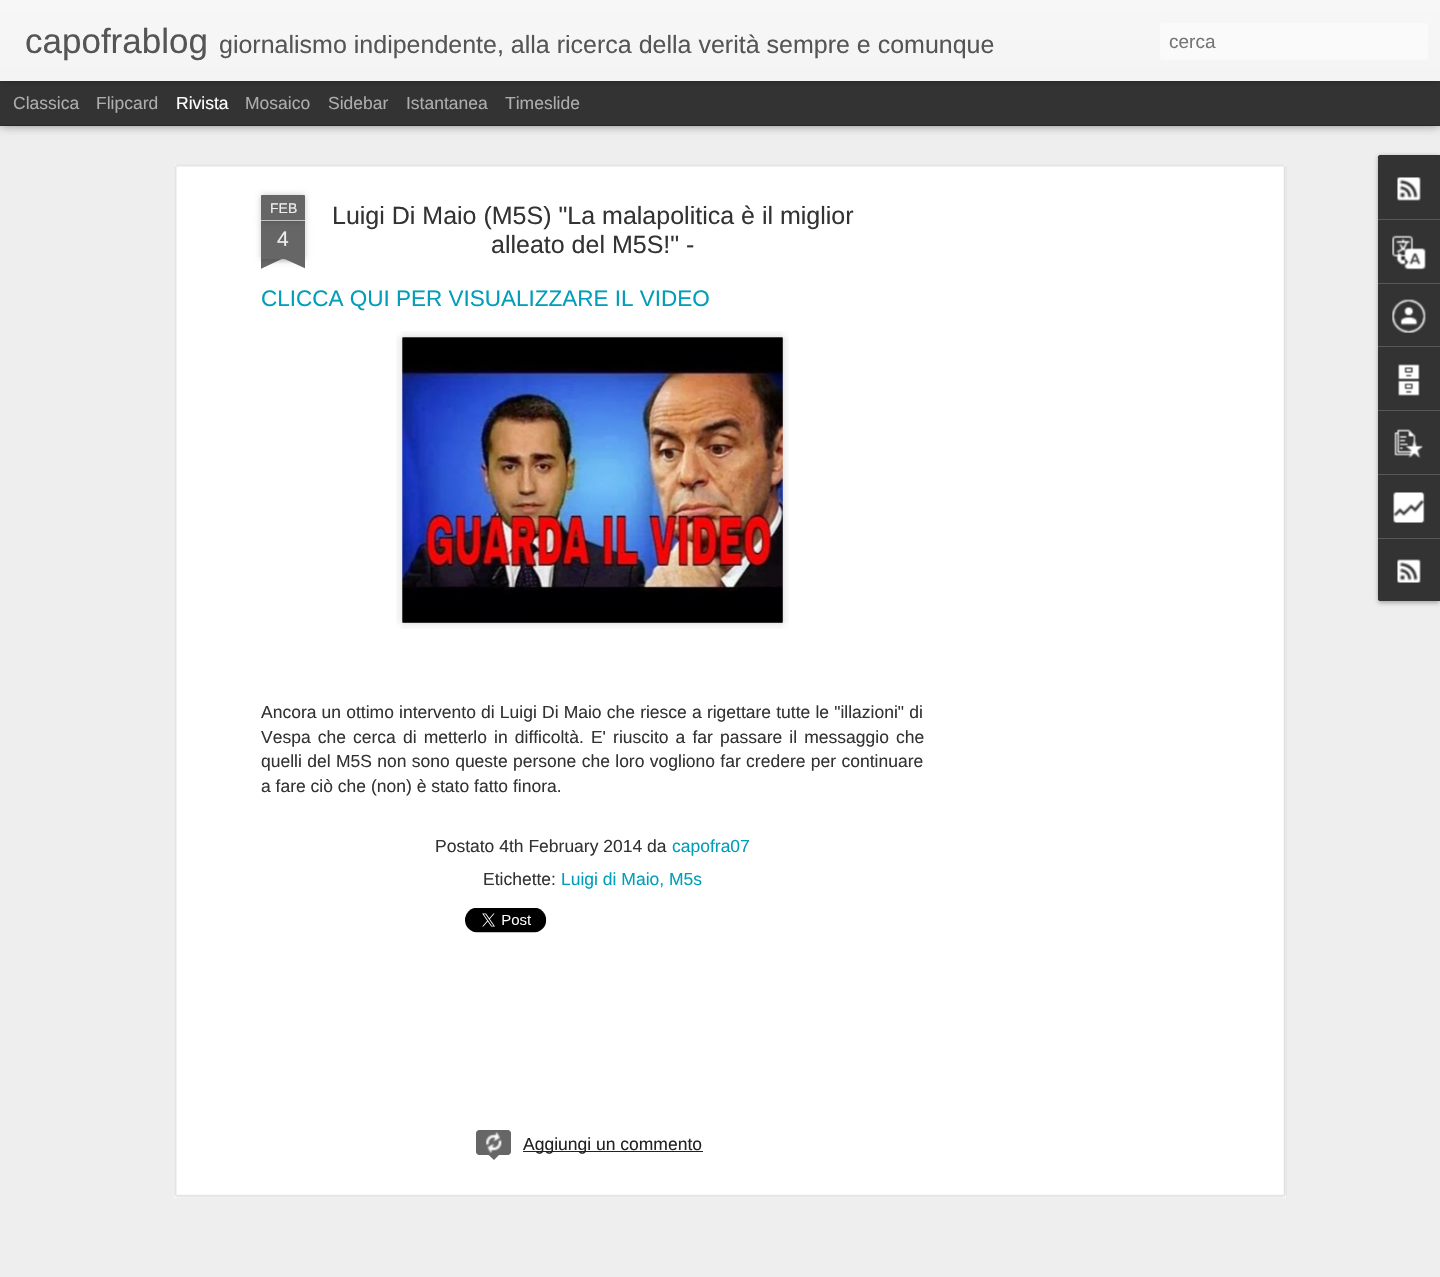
#include "include/core/SkBlurTypes.h"
#include "include/core/SkCanvas.h"
#include "include/core/SkData.h"
#include "include/core/SkFont.h"
#include "include/core/SkFontMgr.h"
#include "include/core/SkImage.h"
#include "include/core/SkMaskFilter.h"
#include "include/core/SkPaint.h"
#include "include/core/SkPathBuilder.h"
#include "include/core/SkTextBlob.h"
#include "include/effects/SkDashPathEffect.h"
#include "include/effects/SkGradientShader.h"
#include "include/utils/SkParsePath.h"

extern sk_sp<SkFontMgr> fontMgr;

void draw(SkCanvas* canvas) {
  SkPaint p;
  p.setAntiAlias(true);
  auto spacedText = [&](const char* s, float x, float y, const SkFont& font, const SkPaint& ink, float letter, float word) {
    std::vector<SkGlyphID> glyphs(font.countText(s, strlen(s), SkTextEncoding::kUTF8));
    std::vector<float> xs(glyphs.size());
    font.textToGlyphs(s, strlen(s), SkTextEncoding::kUTF8, glyphs);
    font.getXPos(glyphs, xs, x);
    float extra = 0;
    for (size_t i = 0; i < glyphs.size(); i++) {
      xs[i] += extra;
      extra += letter + word * (glyphs[i] == font.unicharToGlyph(' '));
    }
    canvas->drawTextBlob(SkTextBlob::MakeFromPosHGlyphs(glyphs, xs, y, font), 0, 0, ink);
  };
  canvas->clear(SkColorSetRGB(51, 51, 51));
  p.setColor(SkColorSetRGB(238, 238, 238));
  canvas->drawRect(SkRect::MakeLTRB(0, 126, 1440, 1277), p);
  p.setColor(SkColorSetARGB(128, 0, 0, 0));
  p.setMaskFilter(SkMaskFilter::MakeBlur(kNormal_SkBlurStyle, 5));
  canvas->drawRect(SkRect::MakeLTRB(0, 81, 1440, 125), p);
  p.setMaskFilter(nullptr);
  p.setColor(SkColorSetRGB(51, 51, 51));
  canvas->drawRect(SkRect::MakeLTRB(0, 81, 1440, 125), p);
  p.setColor(SkColorSetARGB(77, 0, 0, 0));
  p.setMaskFilter(SkMaskFilter::MakeBlur(kNormal_SkBlurStyle, 3));
  canvas->drawRect(SkRect::MakeLTRB(0, 0, 1440, 81), p);
  p.setMaskFilter(nullptr);
  {
    const SkColor colors[] = {SkColorSetRGB(247, 247, 247), SkColorSetRGB(244, 244, 244)};
    const float stops[] = {0, 1};
    const SkPoint ends[] = {{0, 0}, {0, 81}};
    p.setShader(SkGradientShader::MakeLinear(ends, colors, stops, 2, SkTileMode::kClamp));
    p.setAlpha(255);
  }
  canvas->drawRect(SkRect::MakeLTRB(0, 0, 1440, 81), p);
  p.setShader(nullptr);
  p.setColor(SkColorSetRGB(250, 250, 250));
  canvas->drawRoundRect(SkRect::MakeLTRB(1160, 23, 1428, 60), 4, 4, p);
  p.setColor(SK_ColorWHITE);
  canvas->drawRect(SkRect::MakeLTRB(174, 164, 1286, 1198), p);
  canvas->drawImageRect(SkImages::DeferredFromEncodedData(SkData::MakeFromFileName("images/1.png")), SkRect::MakeLTRB(174, 164, 1287, 1198), SkSamplingOptions());
  p.setColor(SkColorSetARGB(51, 0, 0, 0));
  p.setMaskFilter(SkMaskFilter::MakeBlur(kNormal_SkBlurStyle, 3));
  canvas->drawRect(SkRect::MakeLTRB(261, 221, 305, 259), p);
  p.setMaskFilter(nullptr);
  p.setColor(SkColorSetRGB(102, 102, 102));
  canvas->drawRect(SkRect::MakeLTRB(261, 221, 305, 259), p);
  p.setColor(SkColorSetARGB(51, 0, 0, 0));
  p.setMaskFilter(SkMaskFilter::MakeBlur(kNormal_SkBlurStyle, 3));
  canvas->drawRoundRect(SkRect::MakeLTRB(261, 195, 305, 221), 1, 1, p);
  p.setMaskFilter(nullptr);
  p.setColor(SkColorSetRGB(102, 102, 102));
  canvas->drawPath(SkPathBuilder().moveTo(262, 195).lineTo(304, 195).cubicTo(304.5f, 195, 305, 195.5f, 305, 196).lineTo(305, 221).lineTo(261, 221).lineTo(261, 196).cubicTo(261, 195.5f, 261.5f, 195, 262, 195).close().detach(), p);
  p.setColor(SkColorSetRGB(194, 194, 194));
  canvas->drawRect(SkRect::MakeLTRB(261, 220, 305, 221), p);
  canvas->save();
  canvas->clipRect(SkRect::MakeLTRB(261, 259, 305, 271));
  p.setColor(SkColorSetARGB(51, 0, 0, 0));
  p.setMaskFilter(SkMaskFilter::MakeBlur(kNormal_SkBlurStyle, 3));
  canvas->drawRect(SkRect::MakeLTRB(250, 246, 313, 259), p);
  p.setMaskFilter(nullptr);
  canvas->restore();
  canvas->save();
  canvas->clipRect(SkRect::MakeLTRB(261, 259, 305, 271));
  p.setColor(SkColorSetRGB(102, 102, 102));
  canvas->drawPath(SkPathBuilder().moveTo(250, 260).lineTo(307, 234).lineTo(312, 245).lineTo(256, 271).close().detach(), p);
  canvas->restore();
  canvas->save();
  canvas->clipRect(SkRect::MakeLTRB(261, 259, 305, 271));
  p.setColor(SkColorSetARGB(51, 0, 0, 0));
  p.setMaskFilter(SkMaskFilter::MakeBlur(kNormal_SkBlurStyle, 3));
  canvas->drawRect(SkRect::MakeLTRB(254, 246, 316, 259), p);
  p.setMaskFilter(nullptr);
  canvas->restore();
  canvas->save();
  canvas->clipRect(SkRect::MakeLTRB(261, 259, 305, 271));
  p.setColor(SkColorSetRGB(102, 102, 102));
  canvas->drawPath(SkPathBuilder().moveTo(259, 234).lineTo(316, 260).lineTo(311, 271).lineTo(254, 245).close().detach(), p);
  canvas->restore();
  canvas->drawImageRect(SkImages::DeferredFromEncodedData(SkData::MakeFromFileName("images/2.png")), SkRect::MakeLTRB(396, 331, 789, 629), SkSamplingOptions());
  canvas->drawImageRect(SkImages::DeferredFromEncodedData(SkData::MakeFromFileName("images/3.png")), SkRect::MakeLTRB(402, 337, 783, 623), SkSamplingOptions());
  canvas->drawImageRect(SkImages::DeferredFromEncodedData(SkData::MakeFromFileName("images/4.png")), SkRect::MakeLTRB(465, 908, 547, 933), SkSamplingOptions());
  canvas->drawRoundRect(SkRect::MakeLTRB(476, 1130, 511, 1155), 4, 4, p);
  canvas->drawImageRect(SkImages::DeferredFromEncodedData(SkData::MakeFromFileName("images/5.png")), SkRect::MakeLTRB(485, 1131, 502, 1153), SkSamplingOptions());
  p.setStyle(SkPaint::kStroke_Style);
  p.setStrokeWidth(1);
  canvas->drawRoundRect(SkRect::MakeLTRB(476.5f, 1130.5f, 510.5f, 1154.5f), 3.5f, 3.5f, p);
  p.setStyle(SkPaint::kFill_Style);
  canvas->drawPath(SkPathBuilder().moveTo(487.5f, 1154).lineTo(500, 1154).lineTo(494, 1160).close().detach(), p);
  p.setColor(SkColorSetRGB(34, 34, 34));
  canvas->drawRect(SkRect::MakeLTRB(523, 1151, 703, 1152), p);
  p.setColor(SkColorSetARGB(77, 0, 0, 0));
  p.setMaskFilter(SkMaskFilter::MakeBlur(kNormal_SkBlurStyle, 2));
  canvas->drawRoundRect(SkRect::MakeLTRB(1378, 156, 1440, 603), 2.5f, 2.5f, p);
  p.setMaskFilter(nullptr);
  p.setColor(SkColorSetRGB(51, 51, 51));
  canvas->drawPath(SkPathBuilder().moveTo(1380.5f, 155).lineTo(1440, 155).lineTo(1440, 601).lineTo(1380.5f, 601).cubicTo(1379, 601, 1378, 600, 1378, 598.5f).lineTo(1378, 157.5f).cubicTo(1378, 156, 1379, 155, 1380.5f, 155).close().detach(), p);
  canvas->drawPath(SkPathBuilder().moveTo(1380.5f, 155).lineTo(1440, 155).lineTo(1440, 219).lineTo(1378, 219).lineTo(1378, 157.5f).cubicTo(1378, 156, 1379, 155, 1380.5f, 155).close().detach(), p);
  canvas->drawImageRect(SkImages::DeferredFromEncodedData(SkData::MakeFromFileName("images/6.png")), SkRect::MakeLTRB(1397, 177, 1421, 201), SkSamplingOptions());
  p.setColor(SkColorSetRGB(88, 88, 88));
  canvas->drawRect(SkRect::MakeLTRB(1378, 219, 1440, 220), p);
  canvas->drawImageRect(SkImages::DeferredFromEncodedData(SkData::MakeFromFileName("images/7.png")), SkRect::MakeLTRB(1392, 235, 1426, 270), SkSamplingOptions());
  canvas->drawRect(SkRect::MakeLTRB(1378, 283, 1440, 284), p);
  canvas->drawImageRect(SkImages::DeferredFromEncodedData(SkData::MakeFromFileName("images/8.png")), SkRect::MakeLTRB(1392, 299, 1426, 333), SkSamplingOptions());
  canvas->drawRect(SkRect::MakeLTRB(1378, 346, 1440, 347), p);
  canvas->drawImageRect(SkImages::DeferredFromEncodedData(SkData::MakeFromFileName("images/9.png")), SkRect::MakeLTRB(1398, 364, 1420, 396), SkSamplingOptions());
  canvas->drawRect(SkRect::MakeLTRB(1378, 410, 1440, 411), p);
  canvas->drawImageRect(SkImages::DeferredFromEncodedData(SkData::MakeFromFileName("images/10.png")), SkRect::MakeLTRB(1394, 429, 1423, 458), SkSamplingOptions());
  canvas->drawRect(SkRect::MakeLTRB(1378, 474, 1440, 475), p);
  canvas->drawImageRect(SkImages::DeferredFromEncodedData(SkData::MakeFromFileName("images/11.png")), SkRect::MakeLTRB(1393, 492, 1425, 523), SkSamplingOptions());
  p.setColor(SkColorSetRGB(51, 51, 51));
  canvas->drawPath(SkPathBuilder().moveTo(1378, 538).lineTo(1440, 538).lineTo(1440, 601).lineTo(1380.5f, 601).cubicTo(1379, 601, 1378, 600, 1378, 598.5f).close().detach(), p);
  p.setColor(SkColorSetRGB(88, 88, 88));
  canvas->drawRect(SkRect::MakeLTRB(1378, 538, 1440, 539), p);
  canvas->drawImageRect(SkImages::DeferredFromEncodedData(SkData::MakeFromFileName("images/12.png")), SkRect::MakeLTRB(1397, 559, 1421, 583), SkSamplingOptions());
  SkFont font1(fontMgr->matchFamilyStyle("Liberation Sans", SkFontStyle::Normal()), 35);
  font1.setSubpixel(true);
  p.setColor(SkColorSetRGB(85, 85, 85));
  canvas->drawString("capofrablog", 25, 53, font1, p);
  SkFont font2(fontMgr->matchFamilyStyle("Liberation Sans", SkFontStyle::Normal()), 25);
  font2.setSubpixel(true);
  canvas->drawString("giornalismo indipendente, alla ricerca della verità sempre e comunque", 219, 53, font2, p);
  SkFont font3(fontMgr->matchFamilyStyle("Liberation Sans", SkFontStyle::Normal()), 19);
  font3.setSubpixel(true);
  p.setColor(SkColorSetRGB(117, 117, 117));
  canvas->drawString("cerca", 1169, 48, font3, p);
  SkFont font4(fontMgr->matchFamilyStyle("Liberation Sans", SkFontStyle::Normal()), 17.5f);
  font4.setSubpixel(true);
  p.setColor(SkColorSetRGB(173, 173, 173));
  canvas->drawString("Classica", 13, 109, font4, p);
  canvas->drawString("Flipcard", 96, 109, font4, p);
  p.setColor(SK_ColorWHITE);
  canvas->drawString("Rivista", 176, 109, font4, p);
  p.setColor(SkColorSetRGB(173, 173, 173));
  canvas->drawString("Mosaico", 245, 109, font4, p);
  canvas->drawString("Sidebar", 328, 109, font4, p);
  canvas->drawString("Istantanea", 406, 109, font4, p);
  canvas->drawString("Timeslide", 505, 109, font4, p);
  SkFont font5(fontMgr->matchFamilyStyle("Liberation Sans", SkFontStyle::Normal()), 14);
  font5.setSubpixel(true);
  p.setColor(SkColorSetRGB(238, 238, 238));
  canvas->drawString("FEB", 270, 213, font5, p);
  SkFont font6(fontMgr->matchFamilyStyle("Liberation Sans", SkFontStyle::Normal()), 21);
  font6.setSubpixel(true);
  canvas->drawString("4", 277, 246, font6, p);
  p.setColor(SkColorSetRGB(51, 51, 51));
  canvas->drawString("Luigi Di Maio (M5S) \"La malapolitica è il miglior", 332, 224, font2, p);
  canvas->drawString("alleato del M5S!\" -", 491, 253, font2, p);
  SkFont font7(fontMgr->matchFamilyStyle("Liberation Sans", SkFontStyle::Normal()), 22.5f);
  font7.setSubpixel(true);
  p.setColor(SkColorSetRGB(0, 158, 184));
  canvas->drawString("CLICCA QUI PER VISUALIZZARE IL VIDEO", 261, 306, font7, p);
  p.setColor(SkColorSetRGB(51, 51, 51));
  spacedText("Ancora un ottimo intervento di Luigi Di Maio che riesce a rigettare tutte le \"illazioni\" di", 261, 718, font4, p, 0, 0.3f);
  spacedText("Vespa che cerca di metterlo in difficoltà. E' riuscito a far passare il messaggio che", 261, 743, font4, p, 0, 2.25f);
  spacedText("quelli del M5S non sono queste persone che loro vogliono far credere per continuare", 261, 767, font4, p, 0, 0.5f);
  canvas->drawString("a fare ciò che (non) è stato fatto finora.", 261, 792, font4, p);
  canvas->drawString("Postato 4th February 2014 da", 435, 852, font4, p);
  p.setColor(SkColorSetRGB(0, 158, 184));
  canvas->drawString("capofra07", 672, 852, font4, p);
  p.setColor(SkColorSetRGB(51, 51, 51));
  canvas->drawString("Etichette:", 483, 885, font4, p);
  p.setColor(SkColorSetRGB(0, 158, 184));
  canvas->drawString("Luigi di Maio, M5s", 561, 885, font4, p);
  p.setColor(SkColorSetRGB(34, 34, 34));
  canvas->drawString("Aggiungi un commento", 523, 1150, font4, p);
}
